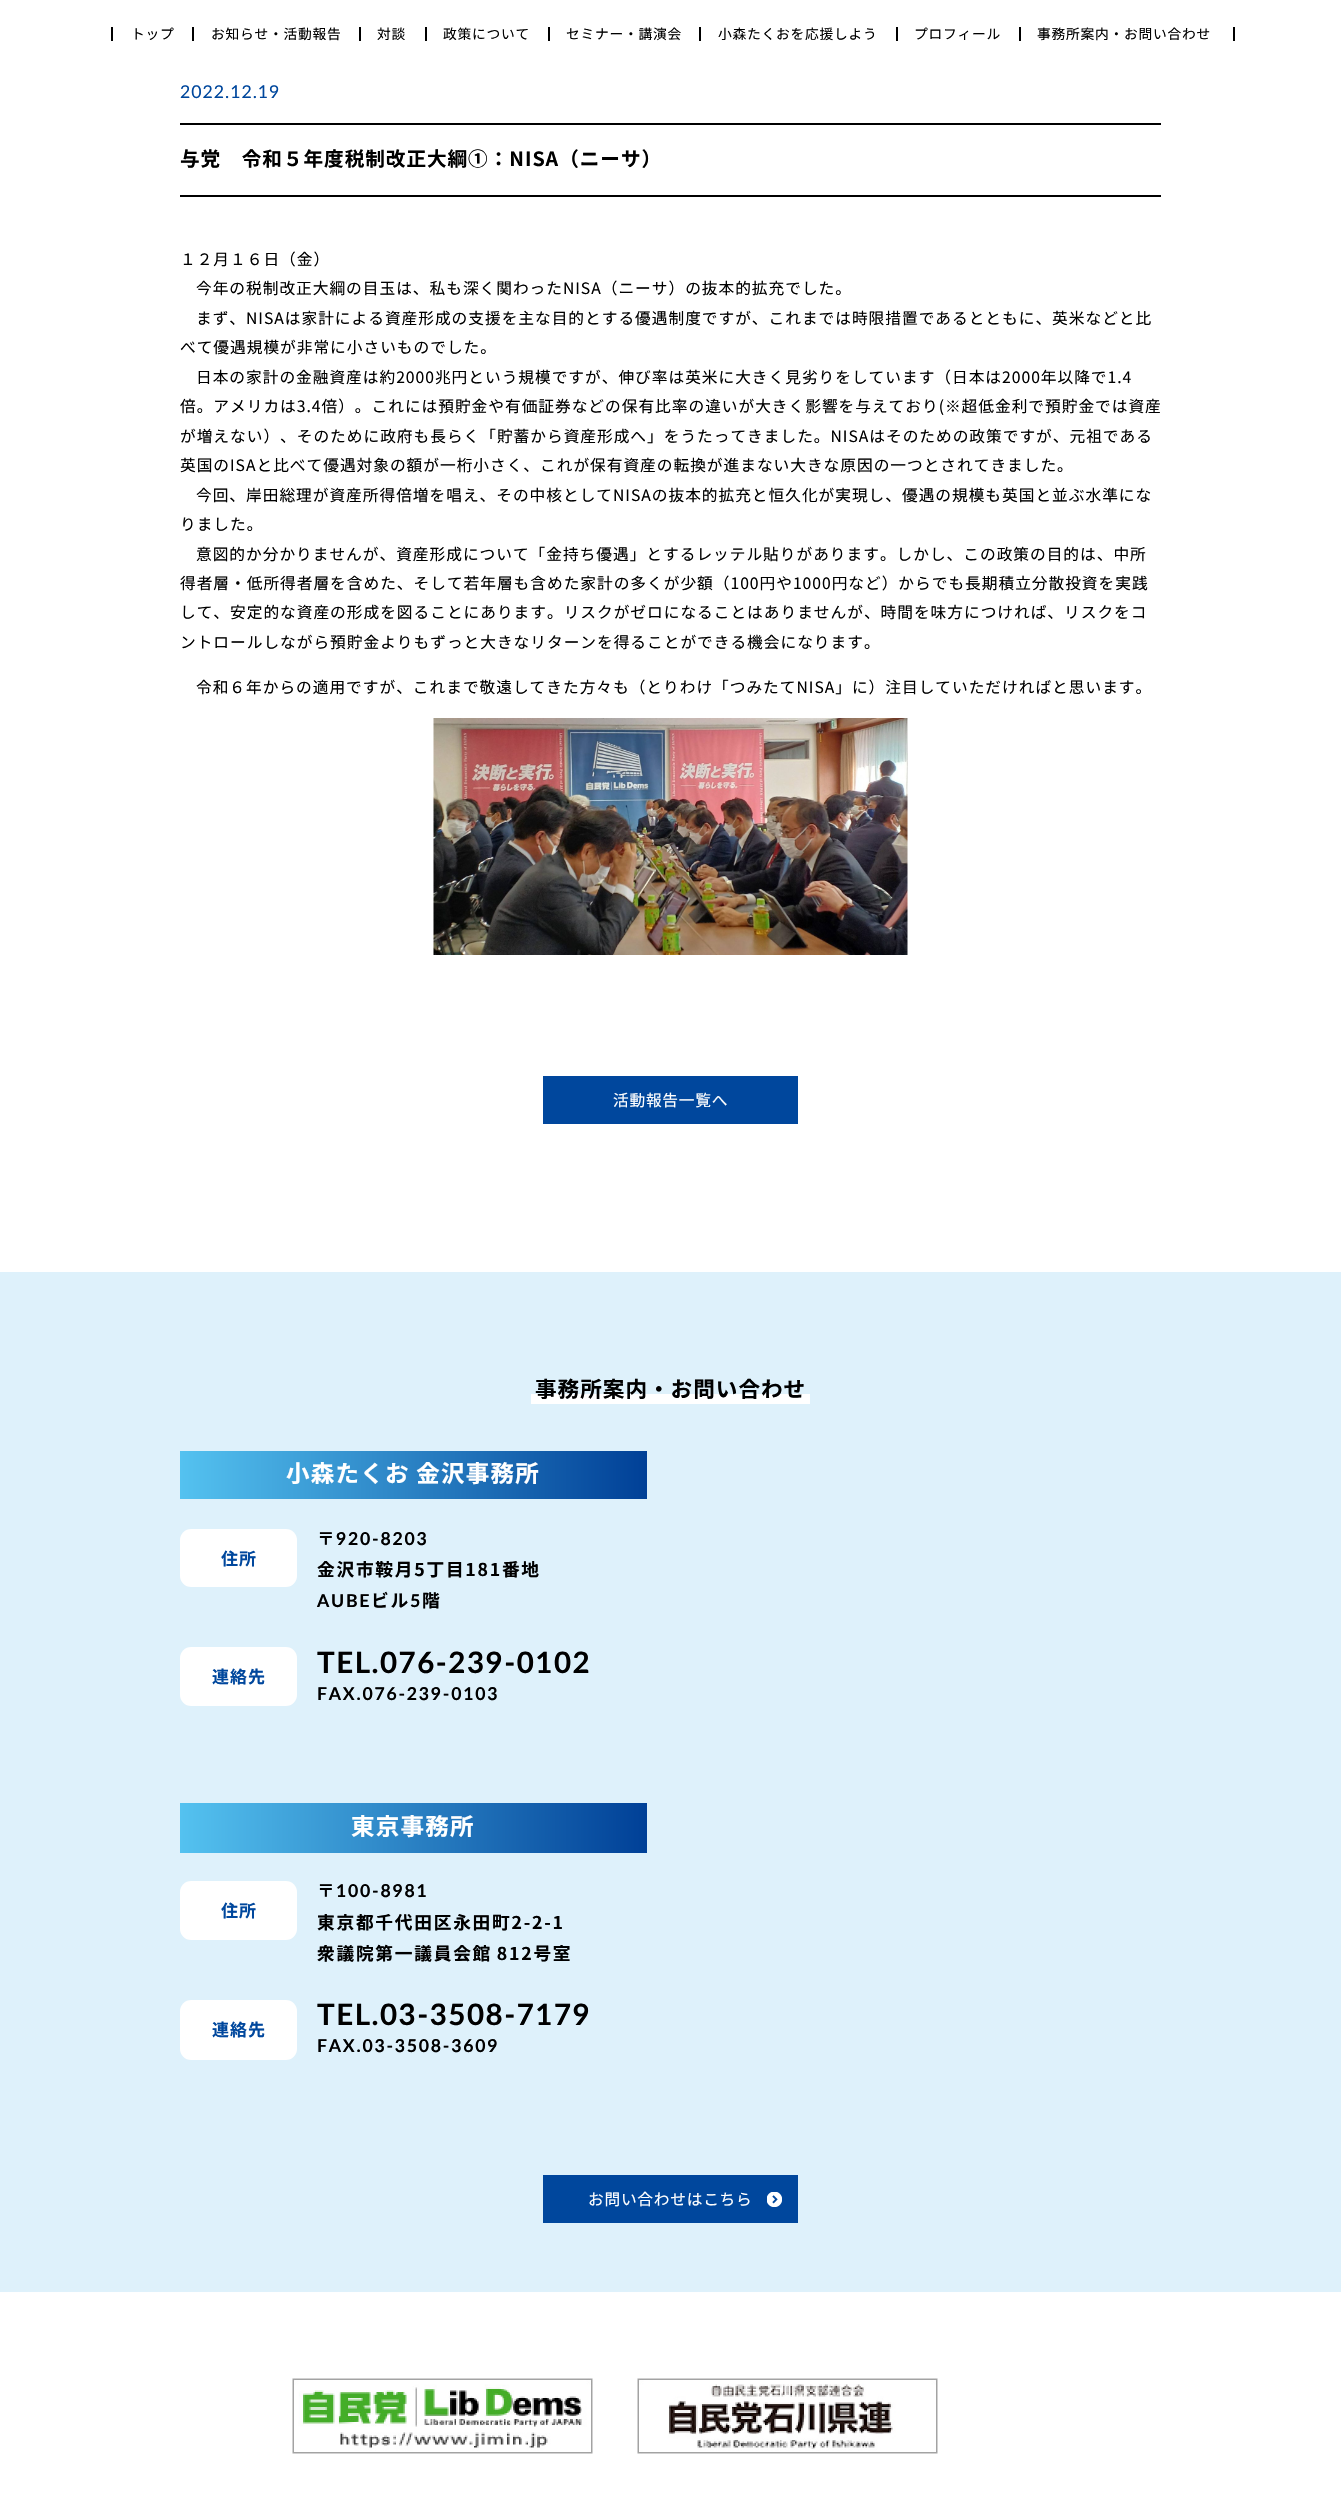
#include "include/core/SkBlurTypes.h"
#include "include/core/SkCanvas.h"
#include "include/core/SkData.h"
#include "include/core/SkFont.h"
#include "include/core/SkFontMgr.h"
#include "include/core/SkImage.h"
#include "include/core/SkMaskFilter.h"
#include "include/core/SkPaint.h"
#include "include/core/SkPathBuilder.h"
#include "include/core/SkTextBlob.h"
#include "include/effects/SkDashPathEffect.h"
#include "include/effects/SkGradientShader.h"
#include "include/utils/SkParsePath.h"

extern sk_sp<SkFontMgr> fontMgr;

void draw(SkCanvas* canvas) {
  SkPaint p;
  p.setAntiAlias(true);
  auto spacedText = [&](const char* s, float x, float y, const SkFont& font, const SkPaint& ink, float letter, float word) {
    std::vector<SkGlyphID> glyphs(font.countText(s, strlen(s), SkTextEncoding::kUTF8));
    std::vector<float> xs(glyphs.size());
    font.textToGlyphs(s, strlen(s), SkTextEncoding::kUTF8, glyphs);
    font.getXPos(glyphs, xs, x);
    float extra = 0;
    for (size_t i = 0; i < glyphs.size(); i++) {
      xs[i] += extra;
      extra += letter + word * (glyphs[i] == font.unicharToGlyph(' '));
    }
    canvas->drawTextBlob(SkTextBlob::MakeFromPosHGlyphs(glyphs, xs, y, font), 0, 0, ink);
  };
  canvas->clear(SK_ColorWHITE);
  p.setColor(SK_ColorBLACK);
  canvas->drawRect(SkRect::MakeLTRB(1233, 27, 1235, 41), p);
  canvas->drawRect(SkRect::MakeLTRB(111, 27, 113, 41), p);
  canvas->drawRect(SkRect::MakeLTRB(192, 27, 194, 41), p);
  canvas->drawRect(SkRect::MakeLTRB(359, 27, 361, 41), p);
  canvas->drawRect(SkRect::MakeLTRB(425, 27, 427, 41), p);
  canvas->drawRect(SkRect::MakeLTRB(548, 27, 550, 41), p);
  canvas->drawRect(SkRect::MakeLTRB(699, 27, 701, 41), p);
  canvas->drawRect(SkRect::MakeLTRB(896, 27, 898, 41), p);
  canvas->drawRect(SkRect::MakeLTRB(1019, 27, 1021, 41), p);
  canvas->drawRect(SkRect::MakeLTRB(180, 123, 1161, 125), p);
  canvas->drawRect(SkRect::MakeLTRB(180, 195, 1161, 197), p);
  canvas->drawImageRect(SkImages::DeferredFromEncodedData(SkData::MakeFromFileName("images/1.png")), SkRect::MakeLTRB(433, 718, 908, 955), SkSamplingOptions());
  p.setColor(SkColorSetRGB(0, 71, 157));
  canvas->drawRect(SkRect::MakeLTRB(543, 1076, 798, 1124), p);
  p.setColor(SkColorSetRGB(222, 241, 251));
  canvas->drawRect(SkRect::MakeLTRB(0, 1272, 1341, 2292), p);
  p.setColor(SK_ColorWHITE);
  canvas->drawRect(SkRect::MakeLTRB(531, 1394, 810, 1404), p);
  {
    const SkColor colors[] = {SkColorSetRGB(84, 194, 240), SkColorSetRGB(0, 64, 151), SkColorSetRGB(51, 143, 205)};
    const float stops[] = {0, 1, 1};
    const SkPoint ends[] = {{180, 1475}, {647, 1475}};
    p.setShader(SkGradientShader::MakeLinear(ends, colors, stops, 3, SkTileMode::kClamp));
    p.setAlpha(255);
  }
  canvas->drawRect(SkRect::MakeLTRB(180, 1451, 647, 1499), p);
  p.setShader(nullptr);
  p.setColor(SK_ColorWHITE);
  canvas->drawRoundRect(SkRect::MakeLTRB(180, 1529, 297, 1587), 11, 11, p);
  canvas->drawRoundRect(SkRect::MakeLTRB(180, 1647, 297, 1706), 11, 11, p);
  {
    const SkColor colors[] = {SkColorSetRGB(84, 194, 240), SkColorSetRGB(0, 64, 151), SkColorSetRGB(51, 143, 205)};
    const float stops[] = {0, 1, 1};
    const SkPoint ends[] = {{180, 1828}, {647, 1828}};
    p.setShader(SkGradientShader::MakeLinear(ends, colors, stops, 3, SkTileMode::kClamp));
    p.setAlpha(255);
  }
  canvas->drawRect(SkRect::MakeLTRB(180, 1803, 647, 1853), p);
  p.setShader(nullptr);
  p.setColor(SK_ColorWHITE);
  canvas->drawRoundRect(SkRect::MakeLTRB(180, 1881, 297, 1940), 11, 11, p);
  canvas->drawRoundRect(SkRect::MakeLTRB(180, 2000, 297, 2060), 11, 11, p);
  p.setColor(SkColorSetRGB(0, 71, 157));
  canvas->drawRect(SkRect::MakeLTRB(543, 2175, 798, 2223), p);
  canvas->drawImageRect(SkImages::DeferredFromEncodedData(SkData::MakeFromFileName("images/2.png")), SkRect::MakeLTRB(767, 2192, 782, 2207), SkSamplingOptions());
  canvas->drawImageRect(SkImages::DeferredFromEncodedData(SkData::MakeFromFileName("images/3.png")), SkRect::MakeLTRB(292, 2378, 593, 2454), SkSamplingOptions());
  canvas->drawImageRect(SkImages::DeferredFromEncodedData(SkData::MakeFromFileName("images/4.png")), SkRect::MakeLTRB(637, 2378, 938, 2454), SkSamplingOptions());
  SkFont font1(fontMgr->matchFamilyStyle("Noto Sans JP", SkFontStyle::Normal()), 13.75f);
  font1.setSubpixel(true);
  p.setColor(SK_ColorBLACK);
  spacedText("トップ", 131, 39, font1, p, 0.75f, 0);
  spacedText("お知らせ・活動報告", 211, 39, font1, p, 0.75f, 0);
  spacedText("対談", 377, 39, font1, p, 0.75f, 0);
  spacedText("政策について", 443, 39, font1, p, 0.75f, 0);
  spacedText("セミナー・講演会", 566, 39, font1, p, 0.75f, 0);
  spacedText("小森たくおを応援しよう", 718, 39, font1, p, 0.75f, 0);
  spacedText("プロフィール", 914, 39, font1, p, 0.75f, 0);
  spacedText("事務所案内・お問い合わせ", 1037, 39, font1, p, 0.75f, 0);
  SkFont font2(fontMgr->matchFamilyStyle("Lato", SkFontStyle::Normal()), 17.7f);
  font2.setSubpixel(true);
  p.setColor(SkColorSetRGB(0, 71, 157));
  spacedText("2022.12.19", 180, 98, font2, p, 0.98f, 0);
  SkFont font3(fontMgr->matchFamilyStyle("Noto Sans JP", SkFontStyle::Bold()), 19.6f);
  font3.setSubpixel(true);
  p.setColor(SK_ColorBLACK);
  spacedText("与党　令和５年度税制改正大綱①：NISA（ニーサ）", 180, 166, font3, p, 0.98f, 0);
  SkFont font4(fontMgr->matchFamilyStyle("Noto Sans JP", SkFontStyle::Normal()), 15.7f);
  font4.setSubpixel(true);
  spacedText("１２月１６日（金）", 180, 265, font4, p, 0.98f, 0);
  spacedText("今年の税制改正大綱の目玉は、私も深く関わったNISA（ニーサ）の抜本的拡充でした。", 196, 294, font4, p, 0.98f, 0);
  spacedText("まず、NISAは家計による資産形成の支援を主な目的とする優遇制度ですが、これまでは時限措置であるとともに、英米などと比", 196, 324, font4, p, 0.98f, 0);
  spacedText("べて優遇規模が非常に小さいものでした。", 180, 353, font4, p, 0.98f, 0);
  spacedText("日本の家計の金融資産は約2000兆円という規模ですが、伸び率は英米に大きく見劣りをしています（日本は2000年以降で1.4", 196, 383, font4, p, 0.98f, 0);
  spacedText("倍。アメリカは3.4倍）。これには預貯金や有価証券などの保有比率の違いが大きく影響を与えており(※超低金利で預貯金では資産", 180, 412, font4, p, 0.98f, 0);
  spacedText("が増えない）、そのために政府も長らく「貯蓄から資産形成へ」をうたってきました。NISAはそのための政策ですが、元祖である", 180, 442, font4, p, 0.98f, 0);
  spacedText("英国のISAと比べて優遇対象の額が一桁小さく、これが保有資産の転換が進まない大きな原因の一つとされてきました。", 180, 471, font4, p, 0.98f, 0);
  spacedText("今回、岸田総理が資産所得倍増を唱え、その中核としてNISAの抜本的拡充と恒久化が実現し、優遇の規模も英国と並ぶ水準にな", 196, 501, font4, p, 0.98f, 0);
  spacedText("りました。", 180, 530, font4, p, 0.98f, 0);
  spacedText("意図的か分かりませんが、資産形成について「金持ち優遇」とするレッテル貼りがあります。しかし、この政策の目的は、中所", 196, 560, font4, p, 0.98f, 0);
  spacedText("得者層・低所得者層を含めた、そして若年層も含めた家計の多くが少額（100円や1000円など）からでも長期積立分散投資を実践", 180, 589, font4, p, 0.98f, 0);
  spacedText("して、安定的な資産の形成を図ることにあります。リスクがゼロになることはありませんが、時間を味方につければ、リスクをコ", 180, 618, font4, p, 0.98f, 0);
  spacedText("ントロールしながら預貯金よりもずっと大きなリターンを得ることができる機会になります。", 180, 648, font4, p, 0.98f, 0);
  spacedText("令和６年からの適用ですが、これまで敬遠してきた方々も（とりわけ「つみたてNISA」に）注目していただければと思います。", 196, 693, font4, p, 0.98f, 0);
  p.setColor(SK_ColorWHITE);
  spacedText("活動報告一覧へ", 613, 1106, font4, p, 0.75f, 0);
  SkFont font5(fontMgr->matchFamilyStyle("Noto Sans JP", SkFontStyle::Bold()), 21.6f);
  font5.setSubpixel(true);
  p.setColor(SK_ColorBLACK);
  spacedText("事務所案内・お問い合わせ", 535, 1397, font5, p, 1, 0);
  SkFont font6(fontMgr->matchFamilyStyle("Noto Sans JP", SkFontStyle::Bold()), 23.5f);
  font6.setSubpixel(true);
  p.setColor(SK_ColorWHITE);
  spacedText("小森たくお 金沢事務所", 286, 1482, font6, p, 1.25f, 0);
  SkFont font7(fontMgr->matchFamilyStyle("Noto Sans JP", SkFontStyle::Bold()), 17);
  font7.setSubpixel(true);
  p.setColor(SkColorSetRGB(0, 71, 157));
  spacedText("住所", 221, 1565, font7, p, 0.98f, 0);
  SkFont font8(fontMgr->matchFamilyStyle("Noto Sans JP", SkFontStyle::Bold()), 17.7f);
  font8.setSubpixel(true);
  p.setColor(SK_ColorBLACK);
  spacedText("〒", 317, 1545, font8, p, 1.75f, 0);
  SkFont font9(fontMgr->matchFamilyStyle("Lato", SkFontStyle::Bold()), 17.7f);
  font9.setSubpixel(true);
  spacedText("920-8203", 336, 1545, font9, p, 1.75f, 0);
  spacedText("金沢市鞍月5丁目181番地", 317, 1576, font8, p, 1.75f, 0);
  spacedText("AUBE", 317, 1607, font9, p, 1.75f, 0);
  spacedText("ビル", 371, 1607, font8, p, 1.75f, 0);
  spacedText("5", 410, 1607, font9, p, 1.75f, 0);
  spacedText("階", 422, 1607, font8, p, 1.75f, 0);
  p.setColor(SkColorSetRGB(0, 71, 157));
  spacedText("連絡先", 212, 1683, font7, p, 0.98f, 0);
  SkFont font10(fontMgr->matchFamilyStyle("Lato", SkFontStyle::Bold()), 29.5f);
  font10.setSubpixel(true);
  p.setColor(SK_ColorBLACK);
  spacedText("TEL.076-239-0102", 317, 1673, font10, p, 1.5f, 0);
  spacedText("FAX.076-239-0103", 317, 1700, font9, p, 1.75f, 0);
  p.setColor(SK_ColorWHITE);
  spacedText("東京事務所", 351, 1835, font6, p, 1.25f, 0);
  p.setColor(SkColorSetRGB(0, 71, 157));
  spacedText("住所", 221, 1917, font7, p, 0.98f, 0);
  p.setColor(SK_ColorBLACK);
  spacedText("〒", 317, 1897, font8, p, 1.75f, 0);
  spacedText("100-8981", 336, 1897, font9, p, 1.75f, 0);
  spacedText("東京都千代田区永田町2-2-1", 317, 1929, font8, p, 1.75f, 0);
  spacedText("衆議院第一議員会館 812号室", 317, 1960, font8, p, 1.75f, -1);
  p.setColor(SkColorSetRGB(0, 71, 157));
  spacedText("連絡先", 212, 2036, font7, p, 0.98f, 0);
  p.setColor(SK_ColorBLACK);
  spacedText("TEL.03-3508-7179", 317, 2025, font10, p, 1.5f, 0);
  spacedText("FAX.03-3508-3609", 317, 2052, font9, p, 1.75f, 0);
  p.setColor(SK_ColorWHITE);
  spacedText("お問い合わせはこちら", 588, 2205, font4, p, 0.75f, 0);
}
